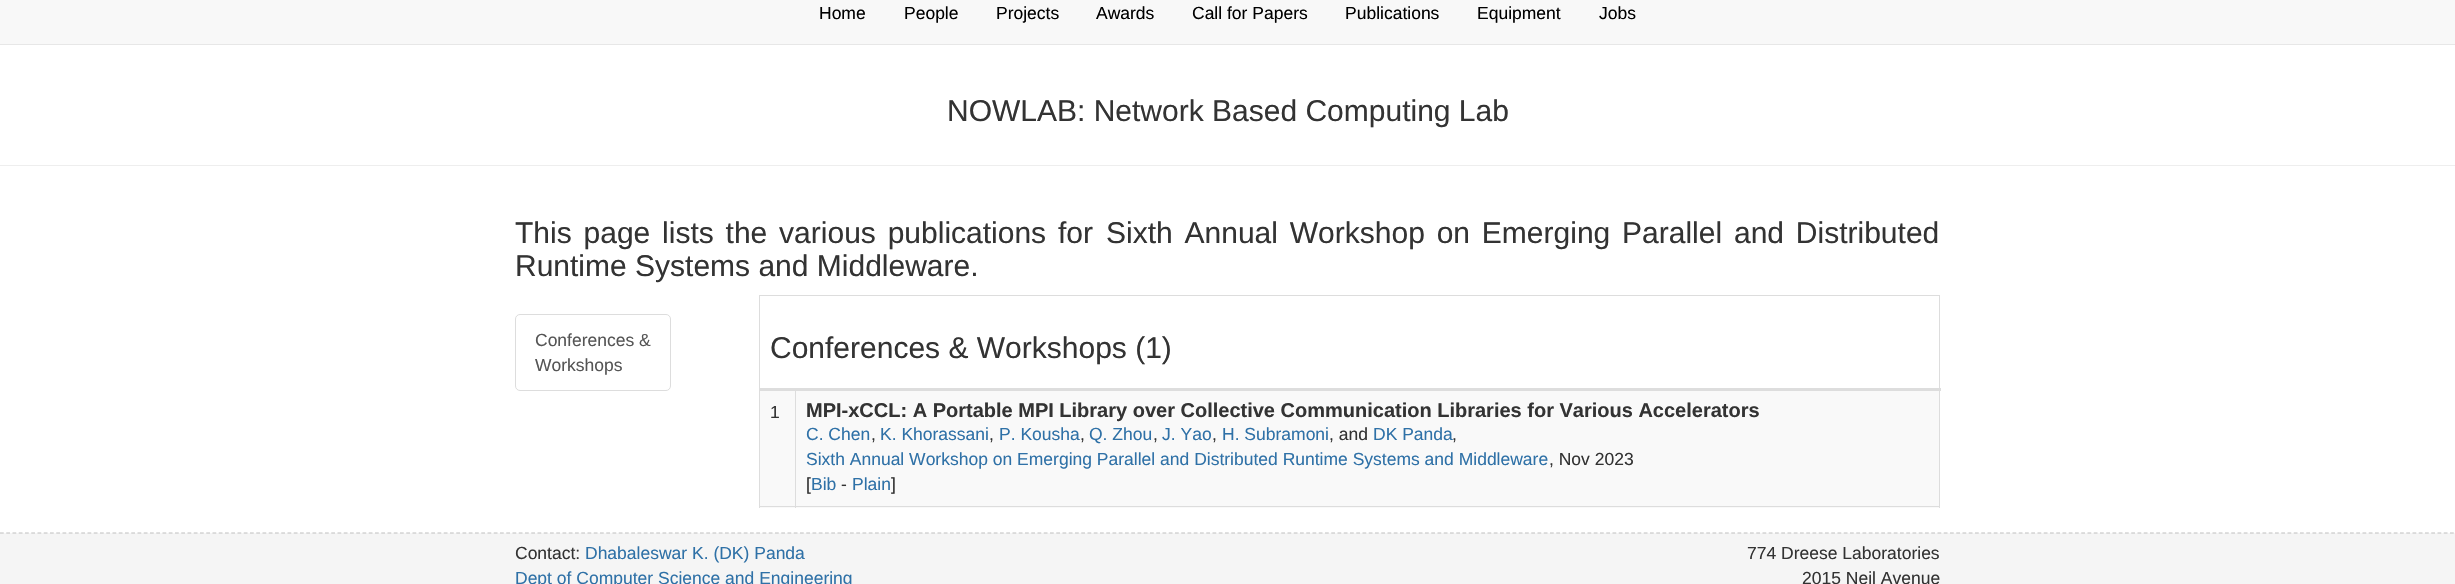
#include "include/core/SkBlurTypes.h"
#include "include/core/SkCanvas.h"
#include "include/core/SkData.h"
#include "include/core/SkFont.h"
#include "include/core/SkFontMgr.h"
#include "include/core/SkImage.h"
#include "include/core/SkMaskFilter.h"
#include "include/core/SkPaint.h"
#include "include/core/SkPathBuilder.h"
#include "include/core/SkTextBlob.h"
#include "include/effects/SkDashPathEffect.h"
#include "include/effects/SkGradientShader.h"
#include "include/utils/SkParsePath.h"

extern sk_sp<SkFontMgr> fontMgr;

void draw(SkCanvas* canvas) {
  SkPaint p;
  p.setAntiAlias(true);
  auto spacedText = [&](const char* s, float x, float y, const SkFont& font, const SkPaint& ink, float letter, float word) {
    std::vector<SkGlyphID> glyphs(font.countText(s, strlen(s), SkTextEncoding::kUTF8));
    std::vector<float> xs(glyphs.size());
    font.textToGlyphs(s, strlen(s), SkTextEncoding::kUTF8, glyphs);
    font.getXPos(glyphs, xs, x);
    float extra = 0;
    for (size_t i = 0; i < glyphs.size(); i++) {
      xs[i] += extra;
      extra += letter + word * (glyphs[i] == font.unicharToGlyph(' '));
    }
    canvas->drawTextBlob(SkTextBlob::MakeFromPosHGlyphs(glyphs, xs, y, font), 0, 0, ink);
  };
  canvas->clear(SK_ColorWHITE);
  p.setColor(SkColorSetRGB(248, 248, 248));
  canvas->drawRect(SkRect::MakeLTRB(0, 0, 2455, 44), p);
  p.setColor(SkColorSetRGB(231, 231, 231));
  canvas->drawRect(SkRect::MakeLTRB(0, 44, 2455, 45), p);
  p.setColor(SkColorSetRGB(238, 238, 238));
  canvas->drawRect(SkRect::MakeLTRB(0, 165, 2455, 166), p);
  p.setStyle(SkPaint::kStroke_Style);
  p.setStrokeWidth(1);
  p.setColor(SkColorSetRGB(221, 221, 221));
  canvas->drawRoundRect(SkRect::MakeLTRB(515.5f, 314.5f, 670.5f, 390.5f), 4.5f, 4.5f, p);
  p.setStyle(SkPaint::kFill_Style);
  canvas->drawRect(SkRect::MakeLTRB(759, 295, 1940, 296), p);
  canvas->drawRect(SkRect::MakeLTRB(1939, 295, 1940, 508), p);
  p.setColor(SkColorSetRGB(249, 249, 249));
  canvas->drawRect(SkRect::MakeLTRB(760, 391, 1939, 508), p);
  p.setColor(SkColorSetRGB(221, 221, 221));
  canvas->drawRect(SkRect::MakeLTRB(759, 506, 1940, 507), p);
  canvas->drawRect(SkRect::MakeLTRB(759, 295, 760, 508), p);
  canvas->drawRect(SkRect::MakeLTRB(795, 388, 796, 508), p);
  canvas->drawRect(SkRect::MakeLTRB(759, 388, 1941, 391), p);
  p.setColor(SkColorSetRGB(245, 245, 245));
  canvas->drawRect(SkRect::MakeLTRB(0, 533, 2455, 584), p);
  p.setStyle(SkPaint::kStroke_Style);
  p.setStrokeWidth(1.2f);
  p.setColor(SkColorSetRGB(192, 192, 192));
  p.setPathEffect(SkDashPathEffect::Make({{3.75f, 2.5f}}, 0));
  canvas->drawPath(SkPathBuilder().moveTo(0, 533).lineTo(2455, 533).detach(), p);
  p.setPathEffect(nullptr);
  SkFont font1(fontMgr->matchFamilyStyle("Liberation Sans", SkFontStyle::Normal()), 17.5f);
  font1.setSubpixel(true);
  p.setStyle(SkPaint::kFill_Style);
  p.setColor(SK_ColorBLACK);
  canvas->drawString("Home", 819, 19, font1, p);
  canvas->drawString("People", 904, 19, font1, p);
  canvas->drawString("Projects", 996, 19, font1, p);
  canvas->drawString("Awards", 1096, 19, font1, p);
  canvas->drawString("Call for Papers", 1192, 19, font1, p);
  canvas->drawString("Publications", 1345, 19, font1, p);
  canvas->drawString("Equipment", 1477, 19, font1, p);
  canvas->drawString("Jobs", 1599, 19, font1, p);
  SkFont font2(fontMgr->matchFamilyStyle("Liberation Sans", SkFontStyle::Normal()), 30);
  font2.setSubpixel(true);
  p.setColor(SkColorSetRGB(51, 51, 51));
  canvas->drawString("NOWLAB: Network Based Computing Lab", 947, 121, font2, p);
  spacedText("This page lists the various publications for", 515, 243, font2, p, 0, 3.5f);
  spacedText("Sixth Annual Workshop on Emerging Parallel and Distributed", 1106, 243, font2, p, 0, 3.5f);
  canvas->drawString("Runtime Systems and Middleware.", 515, 276, font2, p);
  p.setColor(SkColorSetRGB(85, 85, 85));
  canvas->drawString("Conferences &", 535, 346, font1, p);
  canvas->drawString("Workshops", 535, 371, font1, p);
  p.setColor(SkColorSetRGB(51, 51, 51));
  canvas->drawString("Conferences & Workshops (1)", 770, 358, font2, p);
  canvas->drawString("1", 770, 418, font1, p);
  SkFont font3(fontMgr->matchFamilyStyle("Liberation Sans", SkFontStyle::Bold()), 20);
  font3.setSubpixel(true);
  canvas->drawString("MPI-xCCL: A Portable MPI Library over Collective Communication Libraries for Various Accelerators", 806, 417, font3, p);
  p.setColor(SkColorSetRGB(47, 113, 167));
  canvas->drawString("C. Chen", 806, 440, font1, p);
  p.setColor(SkColorSetRGB(51, 51, 51));
  canvas->drawString(",", 871, 440, font1, p);
  p.setColor(SkColorSetRGB(47, 113, 167));
  canvas->drawString("K. Khorassani", 880, 440, font1, p);
  p.setColor(SkColorSetRGB(51, 51, 51));
  canvas->drawString(",", 989, 440, font1, p);
  p.setColor(SkColorSetRGB(47, 113, 167));
  canvas->drawString("P. Kousha", 999, 440, font1, p);
  p.setColor(SkColorSetRGB(51, 51, 51));
  canvas->drawString(",", 1080, 440, font1, p);
  p.setColor(SkColorSetRGB(47, 113, 167));
  canvas->drawString("Q. Zhou", 1089, 440, font1, p);
  p.setColor(SkColorSetRGB(51, 51, 51));
  canvas->drawString(",", 1153, 440, font1, p);
  p.setColor(SkColorSetRGB(47, 113, 167));
  canvas->drawString("J. Yao", 1162, 440, font1, p);
  p.setColor(SkColorSetRGB(51, 51, 51));
  canvas->drawString(",", 1212, 440, font1, p);
  p.setColor(SkColorSetRGB(47, 113, 167));
  canvas->drawString("H. Subramoni", 1222, 440, font1, p);
  p.setColor(SkColorSetRGB(51, 51, 51));
  canvas->drawString(", and", 1329, 440, font1, p);
  p.setColor(SkColorSetRGB(47, 113, 167));
  canvas->drawString("DK Panda", 1373, 440, font1, p);
  p.setColor(SkColorSetRGB(51, 51, 51));
  canvas->drawString(",", 1452, 440, font1, p);
  p.setColor(SkColorSetRGB(47, 113, 167));
  canvas->drawString("Sixth Annual Workshop on Emerging Parallel and Distributed Runtime Systems and Middleware", 806, 465, font1, p);
  p.setColor(SkColorSetRGB(51, 51, 51));
  canvas->drawString(", Nov 2023", 1549, 465, font1, p);
  canvas->drawString("[", 806, 490, font1, p);
  p.setColor(SkColorSetRGB(47, 113, 167));
  canvas->drawString("Bib", 811, 490, font1, p);
  p.setColor(SkColorSetRGB(51, 51, 51));
  canvas->drawString("-", 841, 490, font1, p);
  p.setColor(SkColorSetRGB(47, 113, 167));
  canvas->drawString("Plain", 852, 490, font1, p);
  p.setColor(SkColorSetRGB(51, 51, 51));
  canvas->drawString("]", 891, 490, font1, p);
  canvas->drawString("Contact:", 515, 559, font1, p);
  p.setColor(SkColorSetRGB(47, 113, 167));
  canvas->drawString("Dhabaleswar K. (DK) Panda", 585, 559, font1, p);
  canvas->drawString("Dept of Computer Science and Engineering", 515, 584, font1, p);
  p.setColor(SkColorSetRGB(51, 51, 51));
  canvas->drawString("774 Dreese Laboratories", 1747, 559, font1, p);
  canvas->drawString("2015 Neil Avenue", 1802, 584, font1, p);
}
